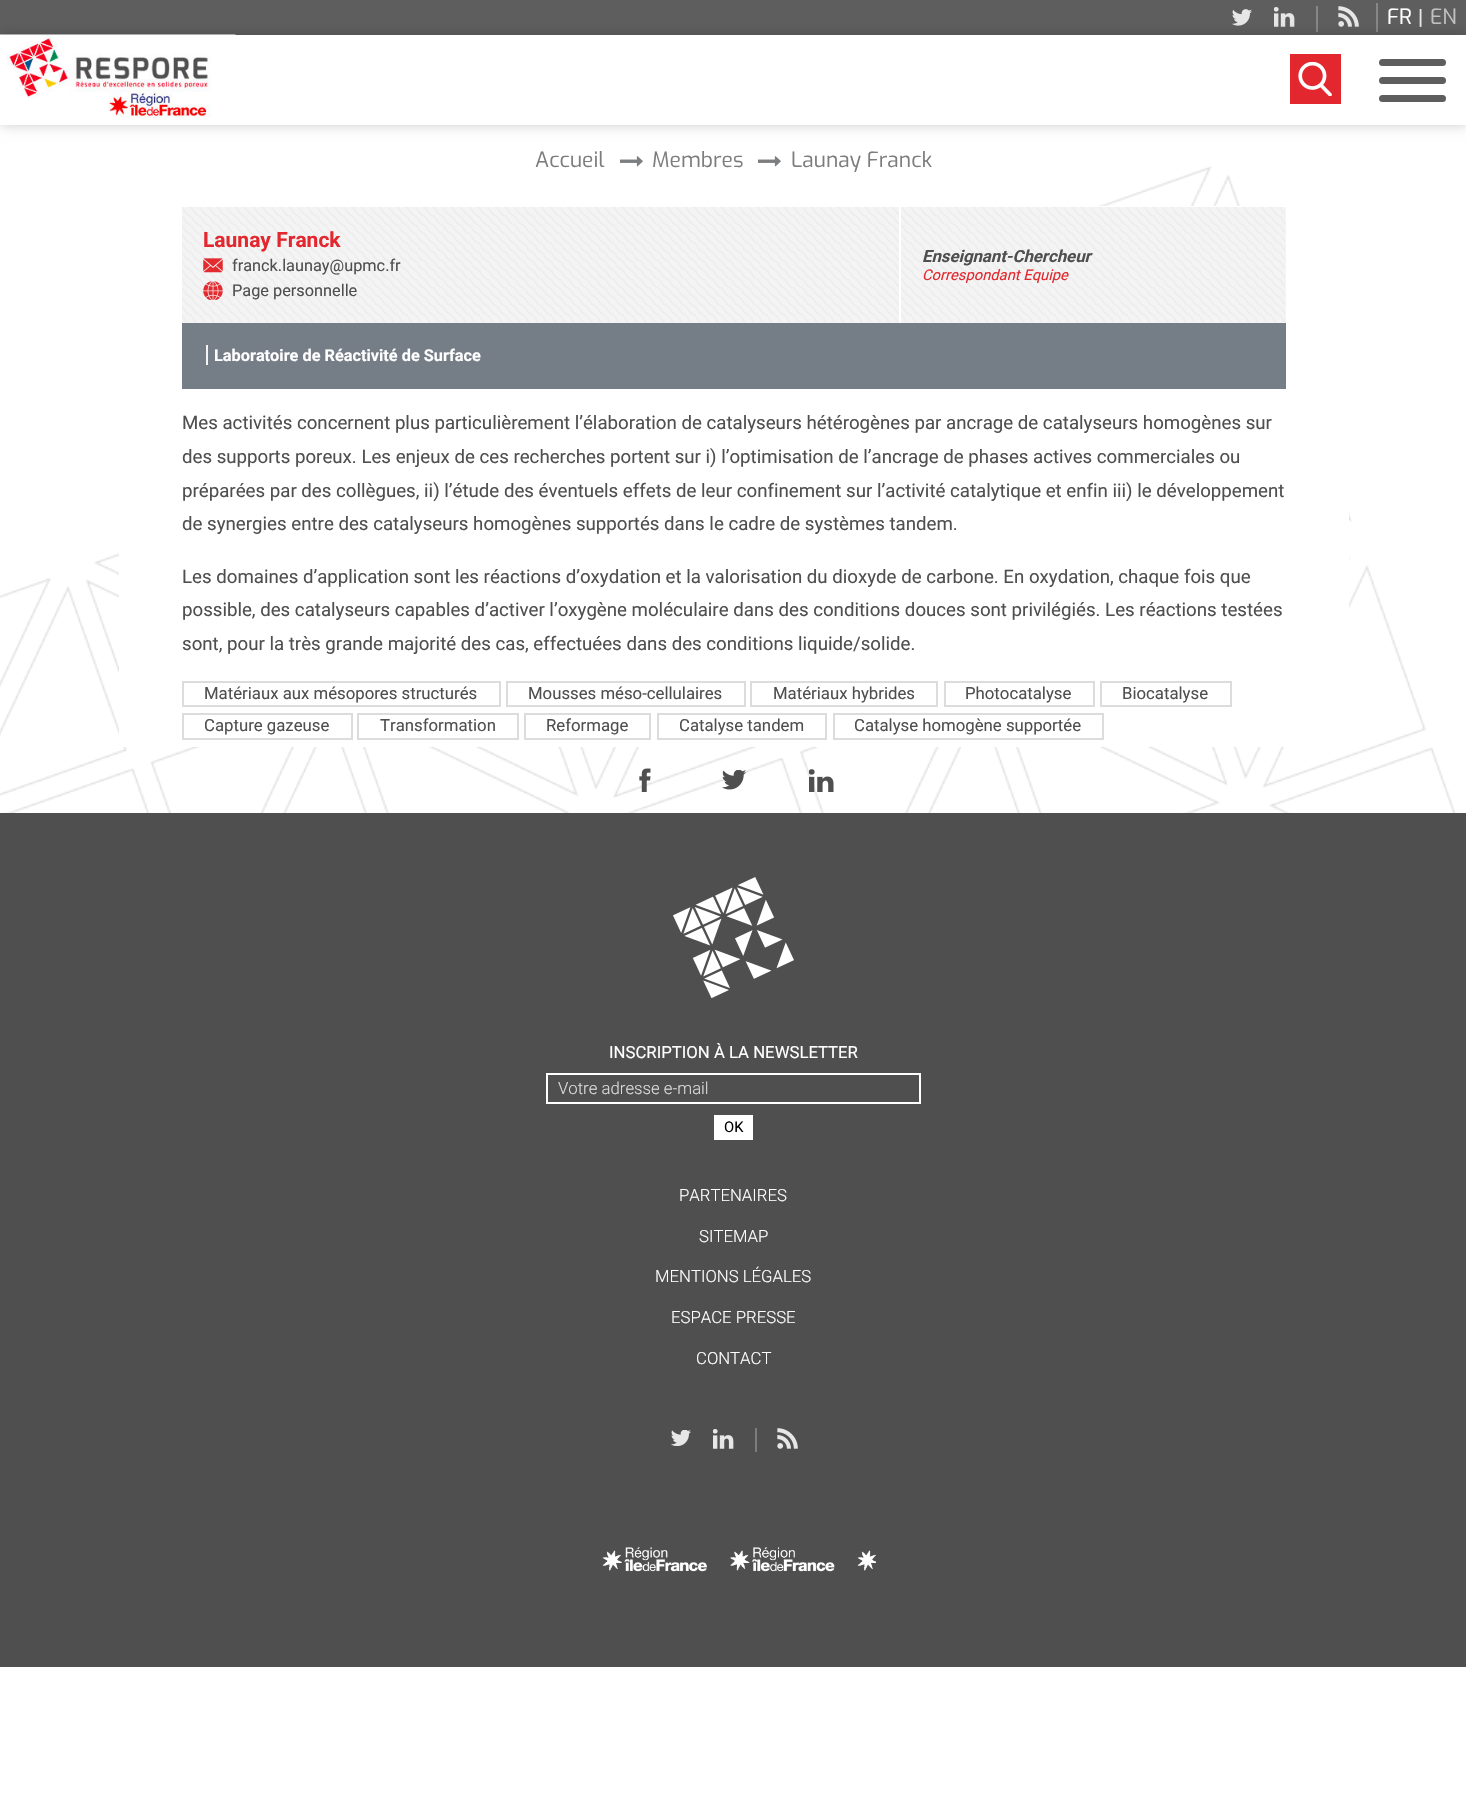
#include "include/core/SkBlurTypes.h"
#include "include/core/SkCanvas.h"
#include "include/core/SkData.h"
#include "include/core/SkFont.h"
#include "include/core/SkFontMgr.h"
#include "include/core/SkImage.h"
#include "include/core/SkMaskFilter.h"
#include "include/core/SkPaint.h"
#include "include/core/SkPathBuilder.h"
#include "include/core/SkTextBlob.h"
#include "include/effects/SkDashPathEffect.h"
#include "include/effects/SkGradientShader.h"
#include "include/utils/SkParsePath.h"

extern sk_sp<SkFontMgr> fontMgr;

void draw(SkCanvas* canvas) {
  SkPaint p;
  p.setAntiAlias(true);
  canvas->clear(SK_ColorWHITE);
  p.setColor(SkColorSetRGB(94, 94, 94));
  canvas->drawRect(SkRect::MakeLTRB(0, 0, 1466, 35), p);
  canvas->drawImageRect(SkImages::DeferredFromEncodedData(SkData::MakeFromFileName("images/1.png")), SkRect::MakeLTRB(1232, 9, 1252, 26), SkSamplingOptions());
  p.setColor(SkColorSetRGB(135, 135, 135));
  canvas->drawRect(SkRect::MakeLTRB(1316, 6, 1318, 32), p);
  canvas->drawImageRect(SkImages::DeferredFromEncodedData(SkData::MakeFromFileName("images/2.png")), SkRect::MakeLTRB(1274, 7, 1295, 27), SkSamplingOptions());
  canvas->drawImageRect(SkImages::DeferredFromEncodedData(SkData::MakeFromFileName("images/3.png")), SkRect::MakeLTRB(1338, 6, 1359, 27), SkSamplingOptions());
  canvas->drawRect(SkRect::MakeLTRB(1376, 3, 1378, 32), p);
  canvas->save();
  canvas->clipPath(SkPathBuilder(SkPathFillType::kEvenOdd).moveTo(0, 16).lineTo(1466, 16).lineTo(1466, 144).lineTo(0, 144).close().moveTo(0, 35).lineTo(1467, 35).lineTo(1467, 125).lineTo(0, 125).close().detach(), true);
  p.setColor(SkColorSetARGB(51, 0, 0, 0));
  p.setMaskFilter(SkMaskFilter::MakeBlur(kNormal_SkBlurStyle, 6));
  canvas->drawRect(SkRect::MakeLTRB(0, 35, 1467, 125), p);
  p.setMaskFilter(nullptr);
  canvas->restore();
  canvas->drawImageRect(SkImages::DeferredFromEncodedData(SkData::MakeFromFileName("images/4.png")), SkRect::MakeLTRB(0, 34, 236, 125), SkSamplingOptions());
  p.setColor(SkColorSetRGB(226, 40, 46));
  canvas->drawRect(SkRect::MakeLTRB(1290, 54, 1341, 104), p);
  canvas->drawImageRect(SkImages::DeferredFromEncodedData(SkData::MakeFromFileName("images/5.png")), SkRect::MakeLTRB(1298, 62, 1332, 96), SkSamplingOptions());
  p.setColor(SkColorSetRGB(94, 94, 94));
  canvas->drawRoundRect(SkRect::MakeLTRB(1379, 59, 1446, 66), 3.5f, 3.5f, p);
  canvas->drawRoundRect(SkRect::MakeLTRB(1379, 77, 1446, 84), 3.5f, 3.5f, p);
  canvas->drawRoundRect(SkRect::MakeLTRB(1379, 95, 1446, 102), 3.5f, 3.5f, p);
  canvas->drawImageRect(SkImages::DeferredFromEncodedData(SkData::MakeFromFileName("images/6.png")), SkRect::MakeLTRB(0, 166, 1456, 813), SkSamplingOptions());
  canvas->drawImageRect(SkImages::DeferredFromEncodedData(SkData::MakeFromFileName("images/7.png")), SkRect::MakeLTRB(620, 156, 643, 167), SkSamplingOptions());
  canvas->drawImageRect(SkImages::DeferredFromEncodedData(SkData::MakeFromFileName("images/7.png")), SkRect::MakeLTRB(758, 156, 781, 167), SkSamplingOptions());
  p.setColor(SK_ColorWHITE);
  canvas->drawRect(SkRect::MakeLTRB(119, 206, 1349, 747), p);
  p.setColor(SkColorSetRGB(244, 244, 244));
  canvas->drawRect(SkRect::MakeLTRB(182, 207, 1286, 323), p);
  canvas->drawImageRect(SkImages::DeferredFromEncodedData(SkData::MakeFromFileName("images/8.png")), SkRect::MakeLTRB(182, 207, 1285, 322), SkSamplingOptions());
  canvas->drawImageRect(SkImages::DeferredFromEncodedData(SkData::MakeFromFileName("images/9.png")), SkRect::MakeLTRB(203, 258, 223, 273), SkSamplingOptions());
  canvas->drawImageRect(SkImages::DeferredFromEncodedData(SkData::MakeFromFileName("images/10.png")), SkRect::MakeLTRB(203, 281, 223, 300), SkSamplingOptions());
  p.setColor(SK_ColorWHITE);
  canvas->drawRect(SkRect::MakeLTRB(899, 207, 901, 323), p);
  p.setColor(SkColorSetRGB(117, 125, 135));
  canvas->drawRect(SkRect::MakeLTRB(182, 323, 1286, 389), p);
  p.setColor(SkColorSetRGB(244, 244, 244));
  canvas->drawRect(SkRect::MakeLTRB(206, 345, 208, 365), p);
  p.setStyle(SkPaint::kStroke_Style);
  p.setStrokeWidth(2);
  p.setColor(SkColorSetRGB(220, 220, 220));
  canvas->drawRect(SkRect::MakeLTRB(183, 682, 500, 706), p);
  canvas->drawRect(SkRect::MakeLTRB(507, 682, 745, 706), p);
  canvas->drawRect(SkRect::MakeLTRB(751, 682, 937, 706), p);
  canvas->drawRect(SkRect::MakeLTRB(945, 682, 1094, 706), p);
  canvas->drawRect(SkRect::MakeLTRB(1101, 682, 1231, 706), p);
  canvas->drawRect(SkRect::MakeLTRB(183, 714, 352, 739), p);
  canvas->drawRect(SkRect::MakeLTRB(358, 714, 518, 739), p);
  canvas->drawRect(SkRect::MakeLTRB(525, 714, 650, 739), p);
  canvas->drawRect(SkRect::MakeLTRB(658, 714, 826, 739), p);
  canvas->drawRect(SkRect::MakeLTRB(834, 714, 1103, 739), p);
  canvas->drawImageRect(SkImages::DeferredFromEncodedData(SkData::MakeFromFileName("images/11.png")), SkRect::MakeLTRB(639, 768, 651, 792), SkSamplingOptions());
  canvas->drawImageRect(SkImages::DeferredFromEncodedData(SkData::MakeFromFileName("images/12.png")), SkRect::MakeLTRB(722, 770, 746, 790), SkSamplingOptions());
  canvas->drawImageRect(SkImages::DeferredFromEncodedData(SkData::MakeFromFileName("images/13.png")), SkRect::MakeLTRB(809, 769, 834, 792), SkSamplingOptions());
  p.setStyle(SkPaint::kFill_Style);
  p.setColor(SkColorSetRGB(79, 79, 79));
  canvas->drawRect(SkRect::MakeLTRB(0, 813, 1466, 1667), p);
  canvas->drawImageRect(SkImages::DeferredFromEncodedData(SkData::MakeFromFileName("images/14.png")), SkRect::MakeLTRB(673, 877, 794, 999), SkSamplingOptions());
  p.setStyle(SkPaint::kStroke_Style);
  p.setColor(SK_ColorWHITE);
  canvas->drawRect(SkRect::MakeLTRB(547, 1074, 920, 1103), p);
  p.setStyle(SkPaint::kFill_Style);
  canvas->drawRect(SkRect::MakeLTRB(714, 1115, 753, 1140), p);
  canvas->drawImageRect(SkImages::DeferredFromEncodedData(SkData::MakeFromFileName("images/15.png")), SkRect::MakeLTRB(671, 1430, 691, 1446), SkSamplingOptions());
  p.setColor(SkColorSetRGB(125, 125, 125));
  canvas->drawRect(SkRect::MakeLTRB(755, 1428, 757, 1452), p);
  canvas->drawImageRect(SkImages::DeferredFromEncodedData(SkData::MakeFromFileName("images/16.png")), SkRect::MakeLTRB(713, 1429, 734, 1449), SkSamplingOptions());
  canvas->drawImageRect(SkImages::DeferredFromEncodedData(SkData::MakeFromFileName("images/17.png")), SkRect::MakeLTRB(777, 1428, 798, 1449), SkSamplingOptions());
  canvas->drawImageRect(SkImages::DeferredFromEncodedData(SkData::MakeFromFileName("images/18.png")), SkRect::MakeLTRB(602, 1547, 876, 1572), SkSamplingOptions());
  SkFont font1(fontMgr->matchFamilyStyle("Exo", SkFontStyle::Normal()), 21);
  font1.setSubpixel(true);
  p.setColor(SK_ColorWHITE);
  canvas->drawString("FR", 1387, 24, font1, p);
  SkFont font2(fontMgr->matchFamilyStyle("Roboto", SkFontStyle::Normal()), 21);
  font2.setSubpixel(true);
  p.setColor(SkColorSetRGB(231, 231, 231));
  canvas->drawString("|", 1418, 24, font2, p);
  p.setColor(SkColorSetRGB(192, 192, 192));
  canvas->drawString("EN", 1430, 24, font1, p);
  p.setColor(SkColorSetRGB(125, 125, 125));
  canvas->drawString("Accueil", 535, 167, font1, p);
  canvas->drawString("Membres", 652, 167, font1, p);
  canvas->drawString("Launay Franck", 791, 167, font1, p);
  SkFont font3(fontMgr->matchFamilyStyle("Roboto", SkFontStyle::Bold()), 21);
  font3.setSubpixel(true);
  p.setColor(SkColorSetRGB(226, 40, 46));
  canvas->drawString("Launay Franck", 203, 247, font3, p);
  SkFont font4(fontMgr->matchFamilyStyle("Roboto", SkFontStyle::Normal()), 16.3f);
  font4.setSubpixel(true);
  p.setColor(SkColorSetRGB(79, 79, 79));
  canvas->drawString("franck.launay@upmc.fr", 232, 271, font4, p);
  canvas->drawString("Page personnelle", 232, 296, font4, p);
  SkFont font5(fontMgr->matchFamilyStyle("Roboto", SkFontStyle::BoldItalic()), 16.75f);
  font5.setSubpixel(true);
  canvas->drawString("Enseignant-Chercheur", 922, 262, font5, p);
  SkFont font6(fontMgr->matchFamilyStyle("Roboto", SkFontStyle::Italic()), 14.75f);
  font6.setSubpixel(true);
  p.setColor(SkColorSetRGB(226, 40, 46));
  canvas->drawString("Correspondant Equipe", 922, 280, font6, p);
  SkFont font7(fontMgr->matchFamilyStyle("Roboto", SkFontStyle::Bold()), 16.3f);
  font7.setSubpixel(true);
  p.setColor(SK_ColorWHITE);
  canvas->drawString("Laboratoire de Réactivité de Surface", 214, 361, font7, p);
  SkFont font8(fontMgr->matchFamilyStyle("Roboto", SkFontStyle::Normal()), 18.67f);
  font8.setSubpixel(true);
  p.setColor(SkColorSetRGB(79, 79, 79));
  canvas->drawString("Mes activités concernent plus particulièrement l’élaboration de catalyseurs hétérogènes par ancrage de catalyseurs homogènes sur", 182, 429, font8, p);
  canvas->drawString("des supports poreux. Les enjeux de ces recherches portent sur i) l’optimisation de l’ancrage de phases actives commerciales ou", 182, 463, font8, p);
  canvas->drawString("préparées par des collègues, ii) l’étude des éventuels effets de leur confinement sur l’activité catalytique et enfin iii) le développement", 182, 497, font8, p);
  canvas->drawString("de synergies entre des catalyseurs homogènes supportés dans le cadre de systèmes tandem.", 182, 530, font8, p);
  canvas->drawString("Les domaines d’application sont les réactions d’oxydation et la valorisation du dioxyde de carbone. En oxydation, chaque fois que", 182, 583, font8, p);
  canvas->drawString("possible, des catalyseurs capables d’activer l’oxygène moléculaire dans des conditions douces sont privilégiés. Les réactions testées", 182, 616, font8, p);
  canvas->drawString("sont, pour la très grande majorité des cas, effectuées dans des conditions liquide/solide.", 182, 650, font8, p);
  SkFont font9(fontMgr->matchFamilyStyle("Roboto", SkFontStyle::Normal()), 16.75f);
  font9.setSubpixel(true);
  canvas->drawString("Matériaux aux mésopores structurés", 204, 699, font9, p);
  canvas->drawString("Mousses méso-cellulaires", 528, 699, font9, p);
  canvas->drawString("Matériaux hybrides", 773, 699, font9, p);
  canvas->drawString("Photocatalyse", 965, 699, font9, p);
  canvas->drawString("Biocatalyse", 1122, 699, font9, p);
  canvas->drawString("Capture gazeuse", 204, 731, font9, p);
  canvas->drawString("Transformation", 380, 731, font9, p);
  canvas->drawString("Reformage", 546, 731, font9, p);
  canvas->drawString("Catalyse tandem", 679, 731, font9, p);
  canvas->drawString("Catalyse homogène supportée", 854, 731, font9, p);
  p.setColor(SK_ColorWHITE);
  canvas->drawString("INSCRIPTION À LA NEWSLETTER", 609, 1058, font9, p);
  SkFont font10(fontMgr->matchFamilyStyle("Roboto", SkFontStyle(300, SkFontStyle::kNormal_Width, SkFontStyle::kUpright_Slant)), 16.75f);
  font10.setSubpixel(true);
  p.setColor(SkColorSetRGB(220, 220, 220));
  canvas->drawString("Votre adresse e-mail", 558, 1094, font10, p);
  SkFont font11(fontMgr->matchFamilyStyle("Roboto", SkFontStyle::Normal()), 14.75f);
  font11.setSubpixel(true);
  p.setColor(SK_ColorBLACK);
  canvas->drawString("OK", 724, 1132, font11, p);
  p.setColor(SK_ColorWHITE);
  canvas->drawString("PARTENAIRES", 679, 1201, font10, p);
  canvas->drawString("SITEMAP", 699, 1242, font10, p);
  canvas->drawString("MENTIONS LÉGALES", 655, 1282, font10, p);
  canvas->drawString("ESPACE PRESSE", 671, 1323, font10, p);
  canvas->drawString("CONTACT", 696, 1364, font10, p);
}
